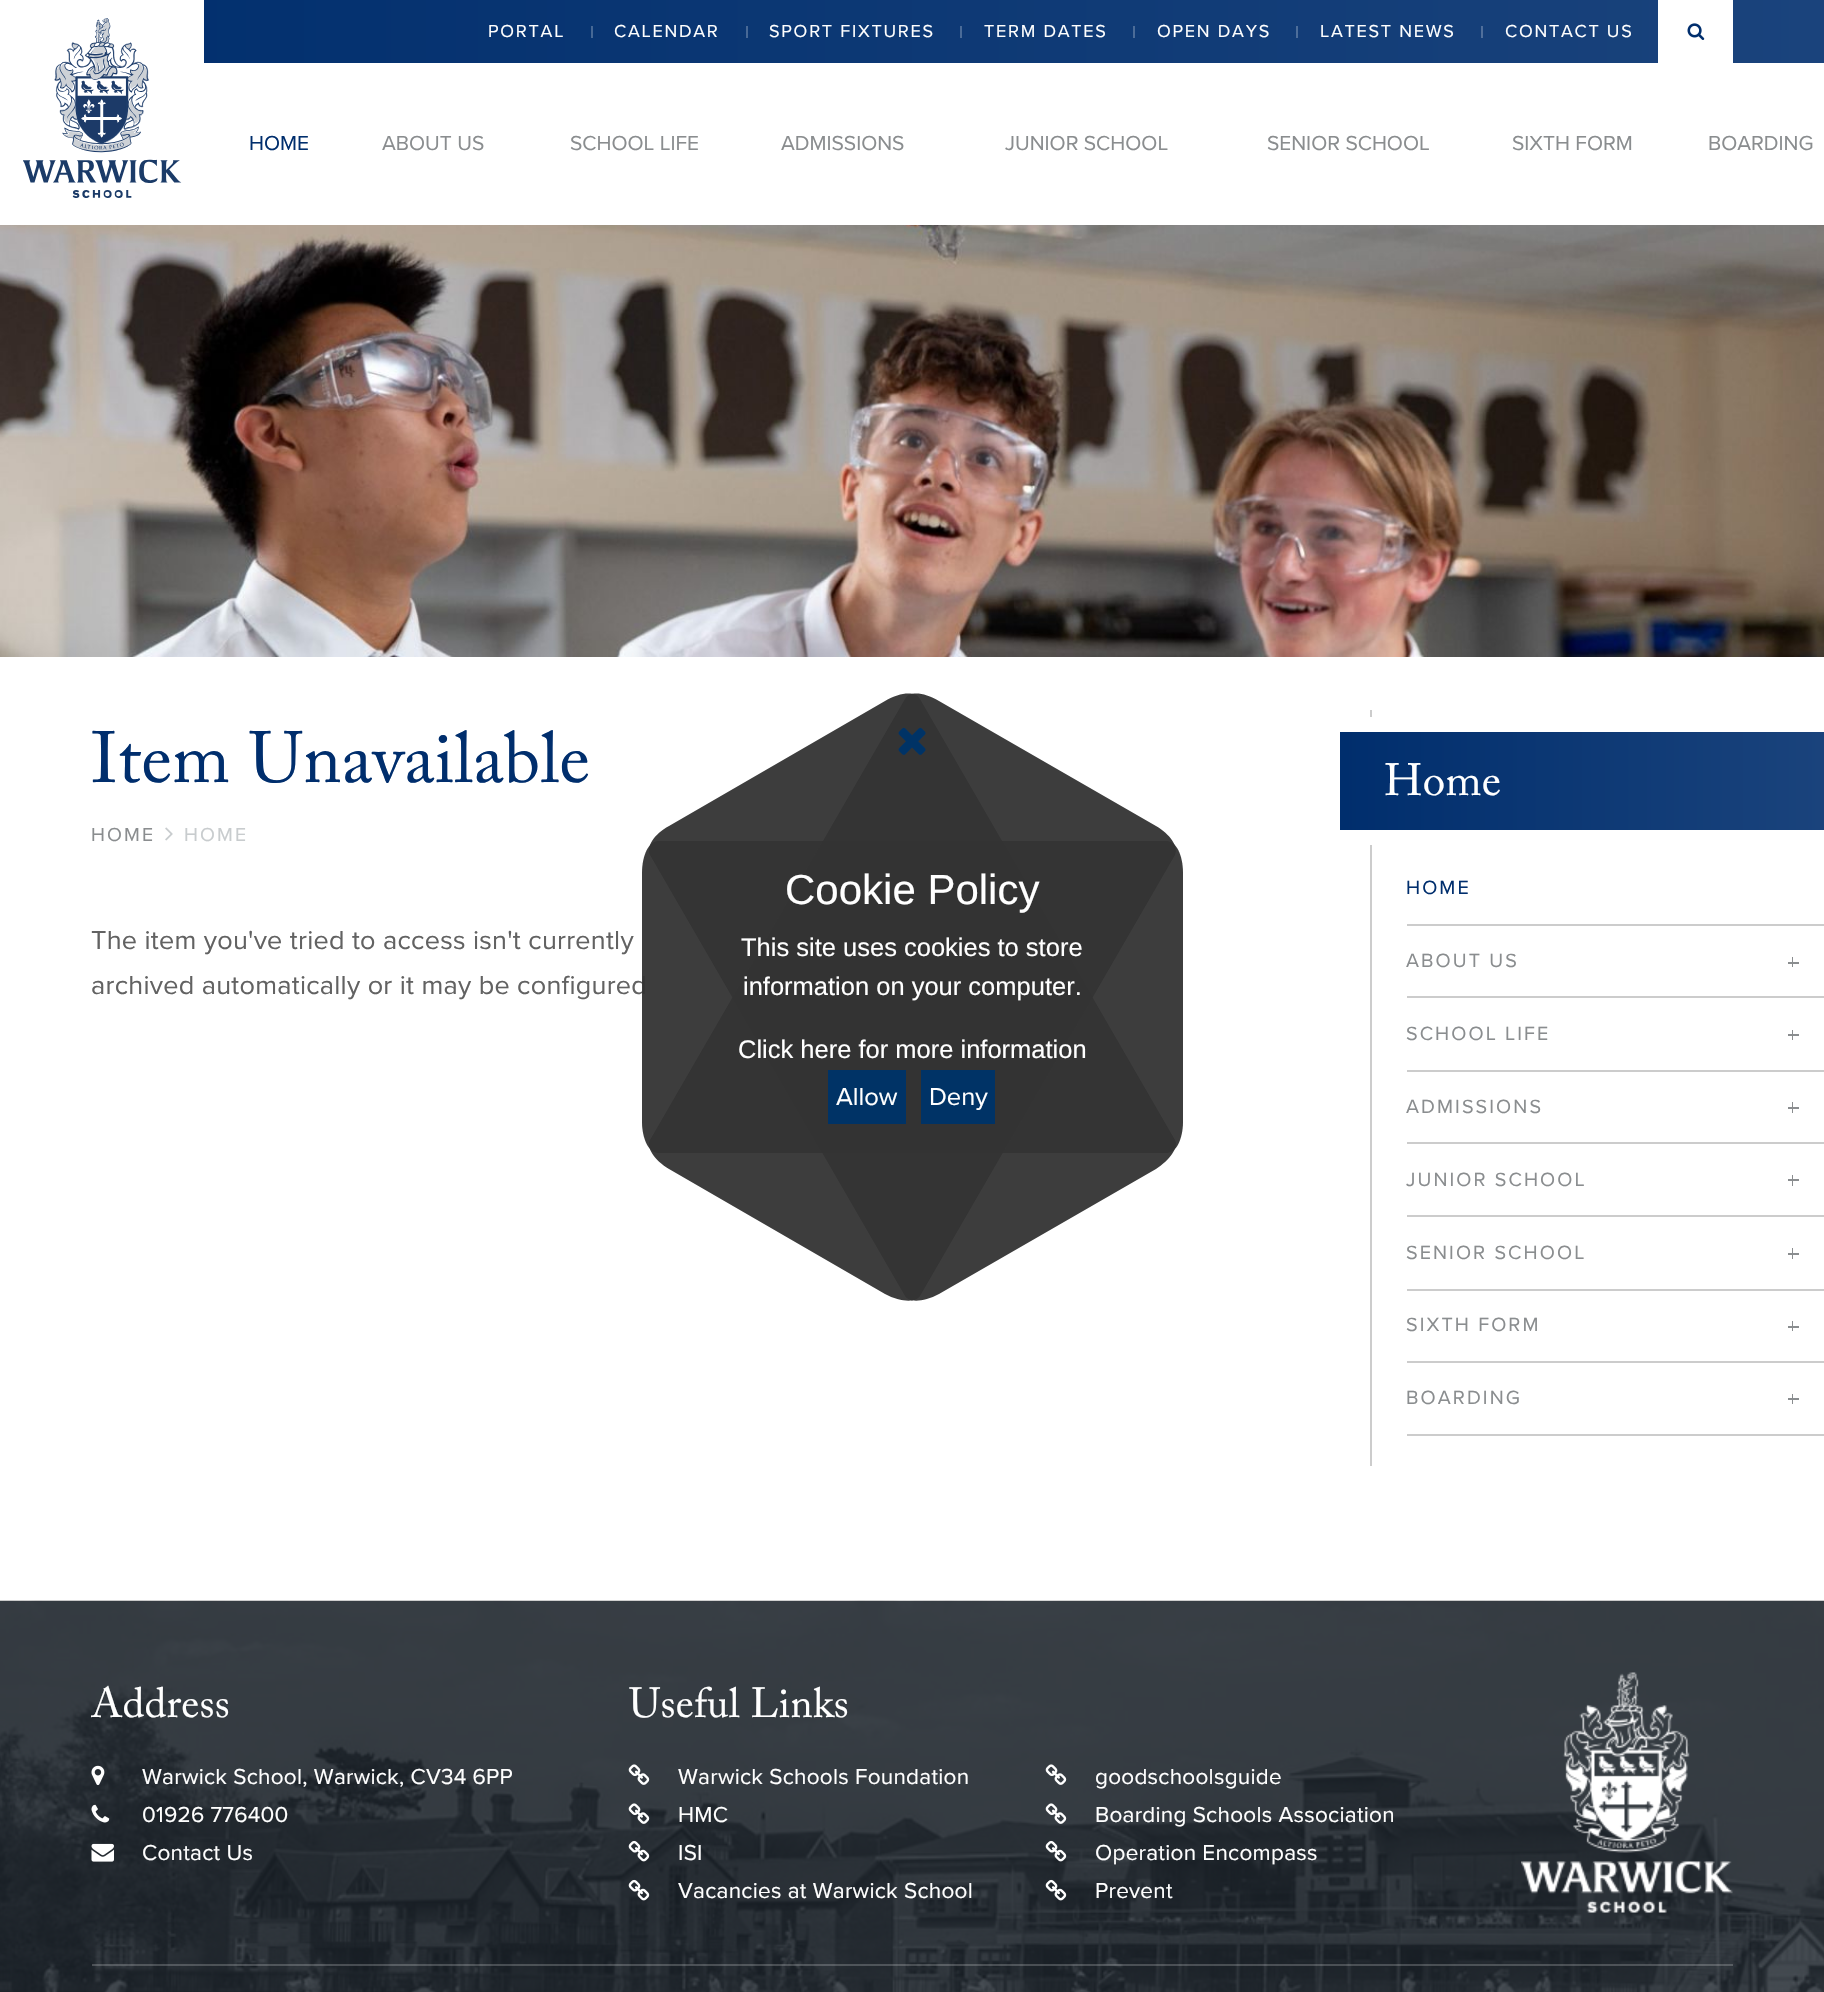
#include "include/core/SkBlurTypes.h"
#include "include/core/SkCanvas.h"
#include "include/core/SkData.h"
#include "include/core/SkFont.h"
#include "include/core/SkFontMgr.h"
#include "include/core/SkImage.h"
#include "include/core/SkMaskFilter.h"
#include "include/core/SkPaint.h"
#include "include/core/SkPathBuilder.h"
#include "include/core/SkTextBlob.h"
#include "include/effects/SkDashPathEffect.h"
#include "include/effects/SkGradientShader.h"
#include "include/utils/SkParsePath.h"

extern sk_sp<SkFontMgr> fontMgr;

void draw(SkCanvas* canvas) {
  SkPaint p;
  p.setAntiAlias(true);
  auto spacedText = [&](const char* s, float x, float y, const SkFont& font, const SkPaint& ink, float letter, float word) {
    std::vector<SkGlyphID> glyphs(font.countText(s, strlen(s), SkTextEncoding::kUTF8));
    std::vector<float> xs(glyphs.size());
    font.textToGlyphs(s, strlen(s), SkTextEncoding::kUTF8, glyphs);
    font.getXPos(glyphs, xs, x);
    float extra = 0;
    for (size_t i = 0; i < glyphs.size(); i++) {
      xs[i] += extra;
      extra += letter + word * (glyphs[i] == font.unicharToGlyph(' '));
    }
    canvas->drawTextBlob(SkTextBlob::MakeFromPosHGlyphs(glyphs, xs, y, font), 0, 0, ink);
  };
  canvas->clear(SK_ColorWHITE);
  {
    const SkColor colors[] = {SkColorSetRGB(0, 46, 109), SkColorSetRGB(26, 67, 124)};
    const float stops[] = {0, 1};
    const SkPoint ends[] = {{0, 32}, {1824, 31}};
    p.setShader(SkGradientShader::MakeLinear(ends, colors, stops, 2, SkTileMode::kClamp));
    p.setAlpha(255);
  }
  canvas->drawRect(SkRect::MakeLTRB(204, 0, 1824, 63), p);
  p.setShader(nullptr);
  p.setColor(SkColorSetRGB(70, 104, 149));
  canvas->drawRect(SkRect::MakeLTRB(591, 26, 593, 38), p);
  p.setColor(SkColorSetRGB(72, 105, 150));
  canvas->drawRect(SkRect::MakeLTRB(746, 26, 748, 38), p);
  p.setColor(SkColorSetRGB(74, 107, 152));
  canvas->drawRect(SkRect::MakeLTRB(960, 26, 962, 38), p);
  p.setColor(SkColorSetRGB(76, 108, 152));
  canvas->drawRect(SkRect::MakeLTRB(1133, 26, 1135, 38), p);
  p.setColor(SkColorSetRGB(77, 110, 154));
  canvas->drawRect(SkRect::MakeLTRB(1296, 26, 1298, 38), p);
  p.setColor(SkColorSetRGB(80, 111, 155));
  canvas->drawRect(SkRect::MakeLTRB(1481, 26, 1483, 38), p);
  p.setColor(SK_ColorWHITE);
  canvas->drawRect(SkRect::MakeLTRB(1658, 0, 1733, 63), p);
  canvas->drawImageRect(SkImages::DeferredFromEncodedData(SkData::MakeFromFileName("images/1.png")), SkRect::MakeLTRB(1687, 23, 1705, 40), SkSamplingOptions());
  canvas->drawImageRect(SkImages::DeferredFromEncodedData(SkData::MakeFromFileName("images/2.png")), SkRect::MakeLTRB(23, 18, 182, 198), SkSamplingOptions());
  canvas->drawImageRect(SkImages::DeferredFromEncodedData(SkData::MakeFromFileName("images/3.png")), SkRect::MakeLTRB(0, 225, 1824, 657), SkSamplingOptions());
  canvas->drawImageRect(SkImages::DeferredFromEncodedData(SkData::MakeFromFileName("images/4.png")), SkRect::MakeLTRB(165, 827, 173, 841), SkSamplingOptions());
  p.setColor(SkColorSetRGB(204, 204, 204));
  canvas->drawRect(SkRect::MakeLTRB(1370, 710, 1372, 1466), p);
  {
    const SkColor colors[] = {SkColorSetRGB(0, 46, 109), SkColorSetRGB(26, 67, 124)};
    const float stops[] = {0, 1};
    const SkPoint ends[] = {{1340, 781}, {1824, 781}};
    p.setShader(SkGradientShader::MakeLinear(ends, colors, stops, 2, SkTileMode::kClamp));
    p.setAlpha(255);
  }
  canvas->drawRect(SkRect::MakeLTRB(1340, 732, 1824, 830), p);
  p.setShader(nullptr);
  p.setColor(SK_ColorWHITE);
  canvas->drawRect(SkRect::MakeLTRB(1370, 717, 1372, 732), p);
  canvas->drawRect(SkRect::MakeLTRB(1370, 830, 1372, 845), p);
  p.setColor(SkColorSetRGB(204, 204, 204));
  canvas->drawRect(SkRect::MakeLTRB(1407, 924, 1824, 926), p);
  canvas->drawRect(SkRect::MakeLTRB(1407, 996, 1824, 998), p);
  p.setColor(SkColorSetRGB(138, 141, 143));
  canvas->drawRect(SkRect::MakeLTRB(1788, 962, 1799, 964), p);
  canvas->drawRect(SkRect::MakeLTRB(1792, 957, 1793, 967), p);
  p.setColor(SkColorSetRGB(204, 204, 204));
  canvas->drawRect(SkRect::MakeLTRB(1407, 1070, 1824, 1072), p);
  p.setColor(SkColorSetRGB(138, 141, 143));
  canvas->drawRect(SkRect::MakeLTRB(1788, 1034, 1799, 1036), p);
  canvas->drawRect(SkRect::MakeLTRB(1792, 1030, 1793, 1040), p);
  p.setColor(SkColorSetRGB(204, 204, 204));
  canvas->drawRect(SkRect::MakeLTRB(1407, 1142, 1824, 1144), p);
  p.setColor(SkColorSetRGB(138, 141, 143));
  canvas->drawRect(SkRect::MakeLTRB(1788, 1107, 1799, 1109), p);
  canvas->drawRect(SkRect::MakeLTRB(1792, 1102, 1793, 1113), p);
  p.setColor(SkColorSetRGB(204, 204, 204));
  canvas->drawRect(SkRect::MakeLTRB(1407, 1215, 1824, 1217), p);
  p.setColor(SkColorSetRGB(138, 141, 143));
  canvas->drawRect(SkRect::MakeLTRB(1788, 1179, 1799, 1181), p);
  canvas->drawRect(SkRect::MakeLTRB(1792, 1175, 1793, 1186), p);
  p.setColor(SkColorSetRGB(204, 204, 204));
  canvas->drawRect(SkRect::MakeLTRB(1407, 1289, 1824, 1291), p);
  p.setColor(SkColorSetRGB(138, 141, 143));
  canvas->drawRect(SkRect::MakeLTRB(1788, 1253, 1799, 1255), p);
  canvas->drawRect(SkRect::MakeLTRB(1792, 1248, 1793, 1259), p);
  p.setColor(SkColorSetRGB(204, 204, 204));
  canvas->drawRect(SkRect::MakeLTRB(1407, 1361, 1824, 1363), p);
  p.setColor(SkColorSetRGB(138, 141, 143));
  canvas->drawRect(SkRect::MakeLTRB(1788, 1326, 1799, 1328), p);
  canvas->drawRect(SkRect::MakeLTRB(1792, 1321, 1793, 1331), p);
  p.setColor(SkColorSetRGB(204, 204, 204));
  canvas->drawRect(SkRect::MakeLTRB(1407, 1434, 1824, 1436), p);
  p.setColor(SkColorSetRGB(138, 141, 143));
  canvas->drawRect(SkRect::MakeLTRB(1788, 1398, 1799, 1400), p);
  canvas->drawRect(SkRect::MakeLTRB(1792, 1394, 1793, 1404), p);
  canvas->drawImageRect(SkImages::DeferredFromEncodedData(SkData::MakeFromFileName("images/5.png")), SkRect::MakeLTRB(0, 1600, 1824, 1992), SkSamplingOptions());
  canvas->drawImageRect(SkImages::DeferredFromEncodedData(SkData::MakeFromFileName("images/6.png")), SkRect::MakeLTRB(91, 1765, 105, 1786), SkSamplingOptions());
  canvas->drawImageRect(SkImages::DeferredFromEncodedData(SkData::MakeFromFileName("images/7.png")), SkRect::MakeLTRB(91, 1804, 110, 1823), SkSamplingOptions());
  canvas->drawImageRect(SkImages::DeferredFromEncodedData(SkData::MakeFromFileName("images/8.png")), SkRect::MakeLTRB(91, 1843, 114, 1862), SkSamplingOptions());
  canvas->drawImageRect(SkImages::DeferredFromEncodedData(SkData::MakeFromFileName("images/9.png")), SkRect::MakeLTRB(628, 1764, 650, 1785), SkSamplingOptions());
  canvas->drawImageRect(SkImages::DeferredFromEncodedData(SkData::MakeFromFileName("images/10.png")), SkRect::MakeLTRB(1045, 1764, 1067, 1785), SkSamplingOptions());
  canvas->drawImageRect(SkImages::DeferredFromEncodedData(SkData::MakeFromFileName("images/11.png")), SkRect::MakeLTRB(628, 1803, 650, 1824), SkSamplingOptions());
  canvas->drawImageRect(SkImages::DeferredFromEncodedData(SkData::MakeFromFileName("images/12.png")), SkRect::MakeLTRB(1045, 1803, 1067, 1824), SkSamplingOptions());
  canvas->drawImageRect(SkImages::DeferredFromEncodedData(SkData::MakeFromFileName("images/13.png")), SkRect::MakeLTRB(628, 1840, 650, 1862), SkSamplingOptions());
  canvas->drawImageRect(SkImages::DeferredFromEncodedData(SkData::MakeFromFileName("images/14.png")), SkRect::MakeLTRB(1045, 1840, 1067, 1862), SkSamplingOptions());
  canvas->drawImageRect(SkImages::DeferredFromEncodedData(SkData::MakeFromFileName("images/15.png")), SkRect::MakeLTRB(628, 1879, 650, 1901), SkSamplingOptions());
  canvas->drawImageRect(SkImages::DeferredFromEncodedData(SkData::MakeFromFileName("images/16.png")), SkRect::MakeLTRB(1045, 1879, 1067, 1901), SkSamplingOptions());
  canvas->drawImageRect(SkImages::DeferredFromEncodedData(SkData::MakeFromFileName("images/17.png")), SkRect::MakeLTRB(1521, 1672, 1733, 1913), SkSamplingOptions());
  p.setColor(SkColorSetARGB(51, 255, 255, 255));
  canvas->drawRect(SkRect::MakeLTRB(92, 1964, 1733, 1966), p);
  SkFont font1(fontMgr->matchFamilyStyle("Proxima Nova", SkFontStyle::Normal()), 18);
  font1.setSubpixel(true);
  p.setColor(SK_ColorWHITE);
  spacedText("PORTAL", 488, 37, font1, p, 1.75f, 0);
  spacedText("CALENDAR", 614, 37, font1, p, 1.75f, 0);
  spacedText("SPORT FIXTURES", 769, 37, font1, p, 1.75f, 0);
  spacedText("TERM DATES", 984, 37, font1, p, 1.75f, 0);
  spacedText("OPEN DAYS", 1157, 37, font1, p, 1.75f, 0);
  spacedText("LATEST NEWS", 1320, 37, font1, p, 1.75f, 0);
  spacedText("CONTACT US", 1505, 37, font1, p, 1.75f, 0);
  SkFont font2(fontMgr->matchFamilyStyle("Proxima Nova", SkFontStyle::Normal()), 21);
  font2.setSubpixel(true);
  p.setColor(SkColorSetRGB(0, 46, 109));
  canvas->drawString("HOME", 249, 150, font2, p);
  p.setColor(SkColorSetRGB(138, 141, 143));
  canvas->drawString("ABOUT US", 382, 150, font2, p);
  canvas->drawString("SCHOOL LIFE", 570, 150, font2, p);
  canvas->drawString("ADMISSIONS", 781, 150, font2, p);
  canvas->drawString("JUNIOR SCHOOL", 1005, 150, font2, p);
  canvas->drawString("SENIOR SCHOOL", 1267, 150, font2, p);
  canvas->drawString("SIXTH FORM", 1512, 150, font2, p);
  canvas->drawString("BOARDING", 1708, 150, font2, p);
  SkFont font3(fontMgr->matchFamilyStyle("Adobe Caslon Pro", SkFontStyle::Normal()), 72);
  font3.setSubpixel(true);
  p.setColor(SkColorSetRGB(0, 46, 109));
  spacedText("Item Unavailable", 91, 782, font3, p, 0.25f, 0);
  SkFont font4(fontMgr->matchFamilyStyle("Proxima Nova", SkFontStyle::Normal()), 19.5f);
  font4.setSubpixel(true);
  p.setColor(SkColorSetRGB(138, 141, 143));
  spacedText("HOME", 91, 841, font4, p, 2.1f, 0);
  p.setColor(SkColorSetRGB(200, 204, 206));
  spacedText("HOME", 184, 841, font4, p, 2.1f, 0);
  SkFont font5(fontMgr->matchFamilyStyle("Proxima Nova", SkFontStyle::Normal()), 27);
  font5.setSubpixel(true);
  p.setColor(SkColorSetRGB(98, 98, 98));
  spacedText("The item you've tried to access isn't currently", 91, 949, font5, p, 0.25f, 0);
  spacedText("archived automatically or it may be configured", 91, 994, font5, p, 0.25f, 0);
  SkFont font6(fontMgr->matchFamilyStyle("Adobe Caslon Pro", SkFontStyle::Normal()), 45);
  font6.setSubpixel(true);
  p.setColor(SK_ColorWHITE);
  spacedText("Home", 1384, 795, font6, p, 0.25f, 0);
  SkFont font7(fontMgr->matchFamilyStyle("Proxima Nova", SkFontStyle::Normal()), 19.75f);
  font7.setSubpixel(true);
  p.setColor(SkColorSetRGB(0, 46, 109));
  spacedText("HOME", 1406, 894, font7, p, 2.1f, 0);
  p.setColor(SkColorSetRGB(138, 141, 143));
  spacedText("ABOUT US", 1406, 967, font7, p, 2.1f, 0);
  spacedText("SCHOOL LIFE", 1406, 1040, font7, p, 2.1f, 0);
  spacedText("ADMISSIONS", 1406, 1113, font7, p, 2.1f, 0);
  spacedText("JUNIOR SCHOOL", 1406, 1186, font7, p, 2.1f, 0);
  spacedText("SENIOR SCHOOL", 1406, 1259, font7, p, 2.1f, 0);
  spacedText("SIXTH FORM", 1406, 1331, font7, p, 2.1f, 0);
  spacedText("BOARDING", 1406, 1404, font7, p, 2.1f, 0);
  SkFont font8(fontMgr->matchFamilyStyle("Adobe Caslon Pro", SkFontStyle::Normal()), 42);
  font8.setSubpixel(true);
  p.setColor(SK_ColorWHITE);
  spacedText("Address", 91, 1717, font8, p, 0.25f, 0);
  SkFont font9(fontMgr->matchFamilyStyle("Proxima Nova", SkFontStyle::Normal()), 22.5f);
  font9.setSubpixel(true);
  spacedText("Warwick School, Warwick, CV34 6PP", 142, 1784, font9, p, 0.25f, 0);
  spacedText("01926 776400", 142, 1822, font9, p, 0.25f, 0);
  spacedText("Contact Us", 142, 1860, font9, p, 0.25f, 0);
  spacedText("Useful Links", 629, 1717, font8, p, 0.25f, 0);
  spacedText("Warwick Schools Foundation", 678, 1784, font9, p, 0.25f, 0);
  spacedText("goodschoolsguide", 1095, 1784, font9, p, 0.25f, 0);
  spacedText("HMC", 678, 1822, font9, p, 0.25f, 0);
  spacedText("Boarding Schools Association", 1095, 1822, font9, p, 0.25f, 0);
  spacedText("ISI", 678, 1860, font9, p, 0.25f, 0);
  spacedText("Operation Encompass", 1095, 1860, font9, p, 0.25f, 0);
  spacedText("Vacancies at Warwick School", 678, 1898, font9, p, 0.25f, 0);
  spacedText("Prevent", 1095, 1898, font9, p, 0.25f, 0);
  p.setColor(SkColorSetARGB(242, 51, 51, 51));
  canvas->drawPath(SkPathBuilder().moveTo(1183, 873).lineTo(1183, 1122).cubicTo(1183, 1139, 1176, 1153, 1167, 1153).lineTo(658, 1153).cubicTo(649, 1153, 642, 1139, 642, 1122).lineTo(642, 873).cubicTo(642, 855, 649, 841, 658, 841).lineTo(1167, 841).cubicTo(1176, 841, 1183, 855, 1183, 873).close().detach(), p);
  canvas->drawPath(SkPathBuilder().moveTo(1156, 1169).lineTo(939, 1294).cubicTo(924, 1302, 909, 1303, 905, 1296).lineTo(650, 855).cubicTo(646, 847, 654, 834, 669, 826).lineTo(885, 701).cubicTo(900, 692, 916, 691, 920, 699).lineTo(1175, 1140).cubicTo(1179, 1147, 1170, 1160, 1156, 1169).close().detach(), p);
  canvas->drawPath(SkPathBuilder().moveTo(939, 701).lineTo(1156, 826).cubicTo(1170, 834, 1179, 847, 1175, 855).lineTo(920, 1296).cubicTo(916, 1303, 900, 1302, 885, 1294).lineTo(669, 1169).cubicTo(654, 1160, 646, 1147, 650, 1140).lineTo(905, 699).cubicTo(909, 691, 924, 692, 939, 701).close().detach(), p);
  canvas->drawImageRect(SkImages::DeferredFromEncodedData(SkData::MakeFromFileName("images/18.png")), SkRect::MakeLTRB(898, 727, 926, 755), SkSamplingOptions());
  SkFont font10(fontMgr->matchFamilyStyle("Liberation Sans", SkFontStyle::Normal()), 42);
  font10.setSubpixel(true);
  p.setColor(SK_ColorWHITE);
  canvas->drawString("Cookie Policy", 785, 904, font10, p);
  SkFont font11(fontMgr->matchFamilyStyle("Liberation Sans", SkFontStyle::Normal()), 25.5f);
  font11.setSubpixel(true);
  canvas->drawString("This site uses cookies to store", 741, 956, font11, p);
  canvas->drawString("information on your computer.", 743, 995, font11, p);
  canvas->drawString("Click here for more information", 738, 1058, font11, p);
  p.setColor(SkColorSetRGB(0, 51, 102));
  canvas->drawRect(SkRect::MakeLTRB(828, 1070, 906, 1124), p);
  SkFont font12(fontMgr->matchFamilyStyle("Proxima Nova", SkFontStyle::Normal()), 25.5f);
  font12.setSubpixel(true);
  p.setColor(SK_ColorWHITE);
  canvas->drawString("Allow", 836, 1105, font12, p);
  p.setColor(SkColorSetRGB(0, 51, 102));
  canvas->drawRect(SkRect::MakeLTRB(921, 1070, 995, 1124), p);
  p.setColor(SK_ColorWHITE);
  canvas->drawString("Deny", 929, 1105, font12, p);
}
